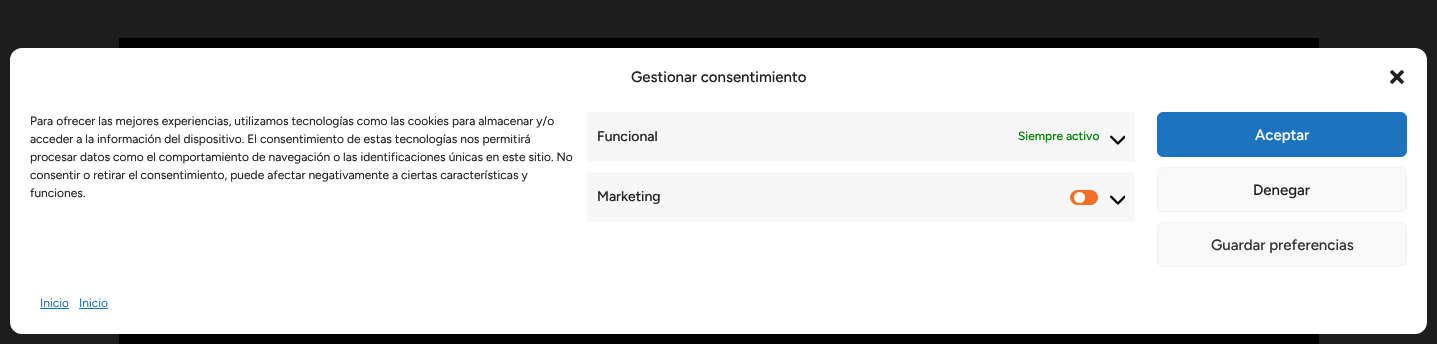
#include "include/core/SkBlurTypes.h"
#include "include/core/SkCanvas.h"
#include "include/core/SkData.h"
#include "include/core/SkFont.h"
#include "include/core/SkFontMgr.h"
#include "include/core/SkImage.h"
#include "include/core/SkMaskFilter.h"
#include "include/core/SkPaint.h"
#include "include/core/SkPathBuilder.h"
#include "include/core/SkTextBlob.h"
#include "include/effects/SkDashPathEffect.h"
#include "include/effects/SkGradientShader.h"
#include "include/utils/SkParsePath.h"

extern sk_sp<SkFontMgr> fontMgr;

void draw(SkCanvas* canvas) {
  SkPaint p;
  p.setAntiAlias(true);
  canvas->clear(SkColorSetRGB(29, 29, 29));
  p.setColor(SK_ColorBLACK);
  canvas->drawRect(SkRect::MakeLTRB(119, 38, 1319, 344), p);
  p.setColor(SK_ColorWHITE);
  canvas->drawRoundRect(SkRect::MakeLTRB(10, 48, 1427, 334), 12, 12, p);
  canvas->drawImageRect(SkImages::DeferredFromEncodedData(SkData::MakeFromFileName("images/1.png")), SkRect::MakeLTRB(1390, 70, 1404, 84), SkSamplingOptions());
  p.setColor(SkColorSetRGB(247, 247, 247));
  canvas->drawRect(SkRect::MakeLTRB(587, 112, 1135, 162), p);
  canvas->drawImageRect(SkImages::DeferredFromEncodedData(SkData::MakeFromFileName("images/2.png")), SkRect::MakeLTRB(1110, 135, 1125, 145), SkSamplingOptions());
  canvas->drawRect(SkRect::MakeLTRB(587, 172, 1135, 222), p);
  p.setColor(SkColorSetRGB(245, 110, 40));
  canvas->drawRoundRect(SkRect::MakeLTRB(1070, 190, 1098, 205), 7.5f, 7.5f, p);
  p.setColor(SK_ColorWHITE);
  canvas->drawCircle(1079.5f, 197.5f, 5.5f, p);
  canvas->drawImageRect(SkImages::DeferredFromEncodedData(SkData::MakeFromFileName("images/2.png")), SkRect::MakeLTRB(1110, 195, 1125, 205), SkSamplingOptions());
  p.setColor(SkColorSetRGB(30, 115, 190));
  canvas->drawRoundRect(SkRect::MakeLTRB(1157.5f, 112.5f, 1406.5f, 156.5f), 5.5f, 5.5f, p);
  p.setStyle(SkPaint::kStroke_Style);
  p.setStrokeWidth(1);
  canvas->drawRoundRect(SkRect::MakeLTRB(1157.5f, 112.5f, 1406.5f, 156.5f), 5.5f, 5.5f, p);
  p.setStyle(SkPaint::kFill_Style);
  p.setColor(SkColorSetRGB(249, 249, 249));
  canvas->drawRoundRect(SkRect::MakeLTRB(1157.5f, 167.5f, 1406.5f, 211.5f), 5.5f, 5.5f, p);
  p.setStyle(SkPaint::kStroke_Style);
  p.setColor(SkColorSetRGB(242, 242, 242));
  canvas->drawRoundRect(SkRect::MakeLTRB(1157.5f, 167.5f, 1406.5f, 211.5f), 5.5f, 5.5f, p);
  p.setStyle(SkPaint::kFill_Style);
  p.setColor(SkColorSetRGB(249, 249, 249));
  canvas->drawRoundRect(SkRect::MakeLTRB(1157.5f, 222.5f, 1406.5f, 266.5f), 5.5f, 5.5f, p);
  p.setStyle(SkPaint::kStroke_Style);
  p.setColor(SkColorSetRGB(242, 242, 242));
  canvas->drawRoundRect(SkRect::MakeLTRB(1157.5f, 222.5f, 1406.5f, 266.5f), 5.5f, 5.5f, p);
  p.setStyle(SkPaint::kFill_Style);
  p.setColor(SkColorSetRGB(30, 115, 190));
  canvas->drawRect(SkRect::MakeLTRB(40, 308, 69, 309), p);
  canvas->drawRect(SkRect::MakeLTRB(79, 308, 108, 309), p);
  SkFont font1(fontMgr->matchFamilyStyle("Figtree", SkFontStyle(500, SkFontStyle::kNormal_Width, SkFontStyle::kUpright_Slant)), 15);
  font1.setSubpixel(true);
  p.setColor(SkColorSetRGB(34, 34, 34));
  canvas->drawString("Gestionar consentimiento", 631, 82, font1, p);
  SkFont font2(fontMgr->matchFamilyStyle("Figtree", SkFontStyle::Normal()), 12);
  font2.setSubpixel(true);
  canvas->drawString("Para ofrecer las mejores experiencias, utilizamos tecnologías como las cookies para almacenar y/o", 30, 125, font2, p);
  canvas->drawString("acceder a la información del dispositivo. El consentimiento de estas tecnologías nos permitirá", 30, 143, font2, p);
  canvas->drawString("procesar datos como el comportamiento de navegación o las identificaciones únicas en este sitio. No", 30, 161, font2, p);
  canvas->drawString("consentir o retirar el consentimiento, puede afectar negativamente a ciertas características y", 30, 179, font2, p);
  canvas->drawString("funciones.", 30, 197, font2, p);
  SkFont font3(fontMgr->matchFamilyStyle("Figtree", SkFontStyle(500, SkFontStyle::kNormal_Width, SkFontStyle::kUpright_Slant)), 14);
  font3.setSubpixel(true);
  canvas->drawString("Funcional", 597, 141, font3, p);
  SkFont font4(fontMgr->matchFamilyStyle("Figtree", SkFontStyle(500, SkFontStyle::kNormal_Width, SkFontStyle::kUpright_Slant)), 12);
  font4.setSubpixel(true);
  p.setColor(SkColorSetRGB(0, 128, 0));
  canvas->drawString("Siempre activo", 1018, 140, font4, p);
  p.setColor(SkColorSetRGB(34, 34, 34));
  canvas->drawString("Marketing", 597, 201, font3, p);
  p.setColor(SK_ColorWHITE);
  canvas->drawString("Aceptar", 1255, 140, font1, p);
  p.setColor(SkColorSetRGB(34, 34, 34));
  canvas->drawString("Denegar", 1253, 195, font1, p);
  p.setColor(SkColorSetRGB(51, 51, 51));
  canvas->drawString("Guardar preferencias", 1211, 250, font1, p);
  p.setColor(SkColorSetRGB(30, 115, 190));
  canvas->drawString("Inicio", 40, 307, font2, p);
  canvas->drawString("Inicio", 79, 307, font2, p);
}
